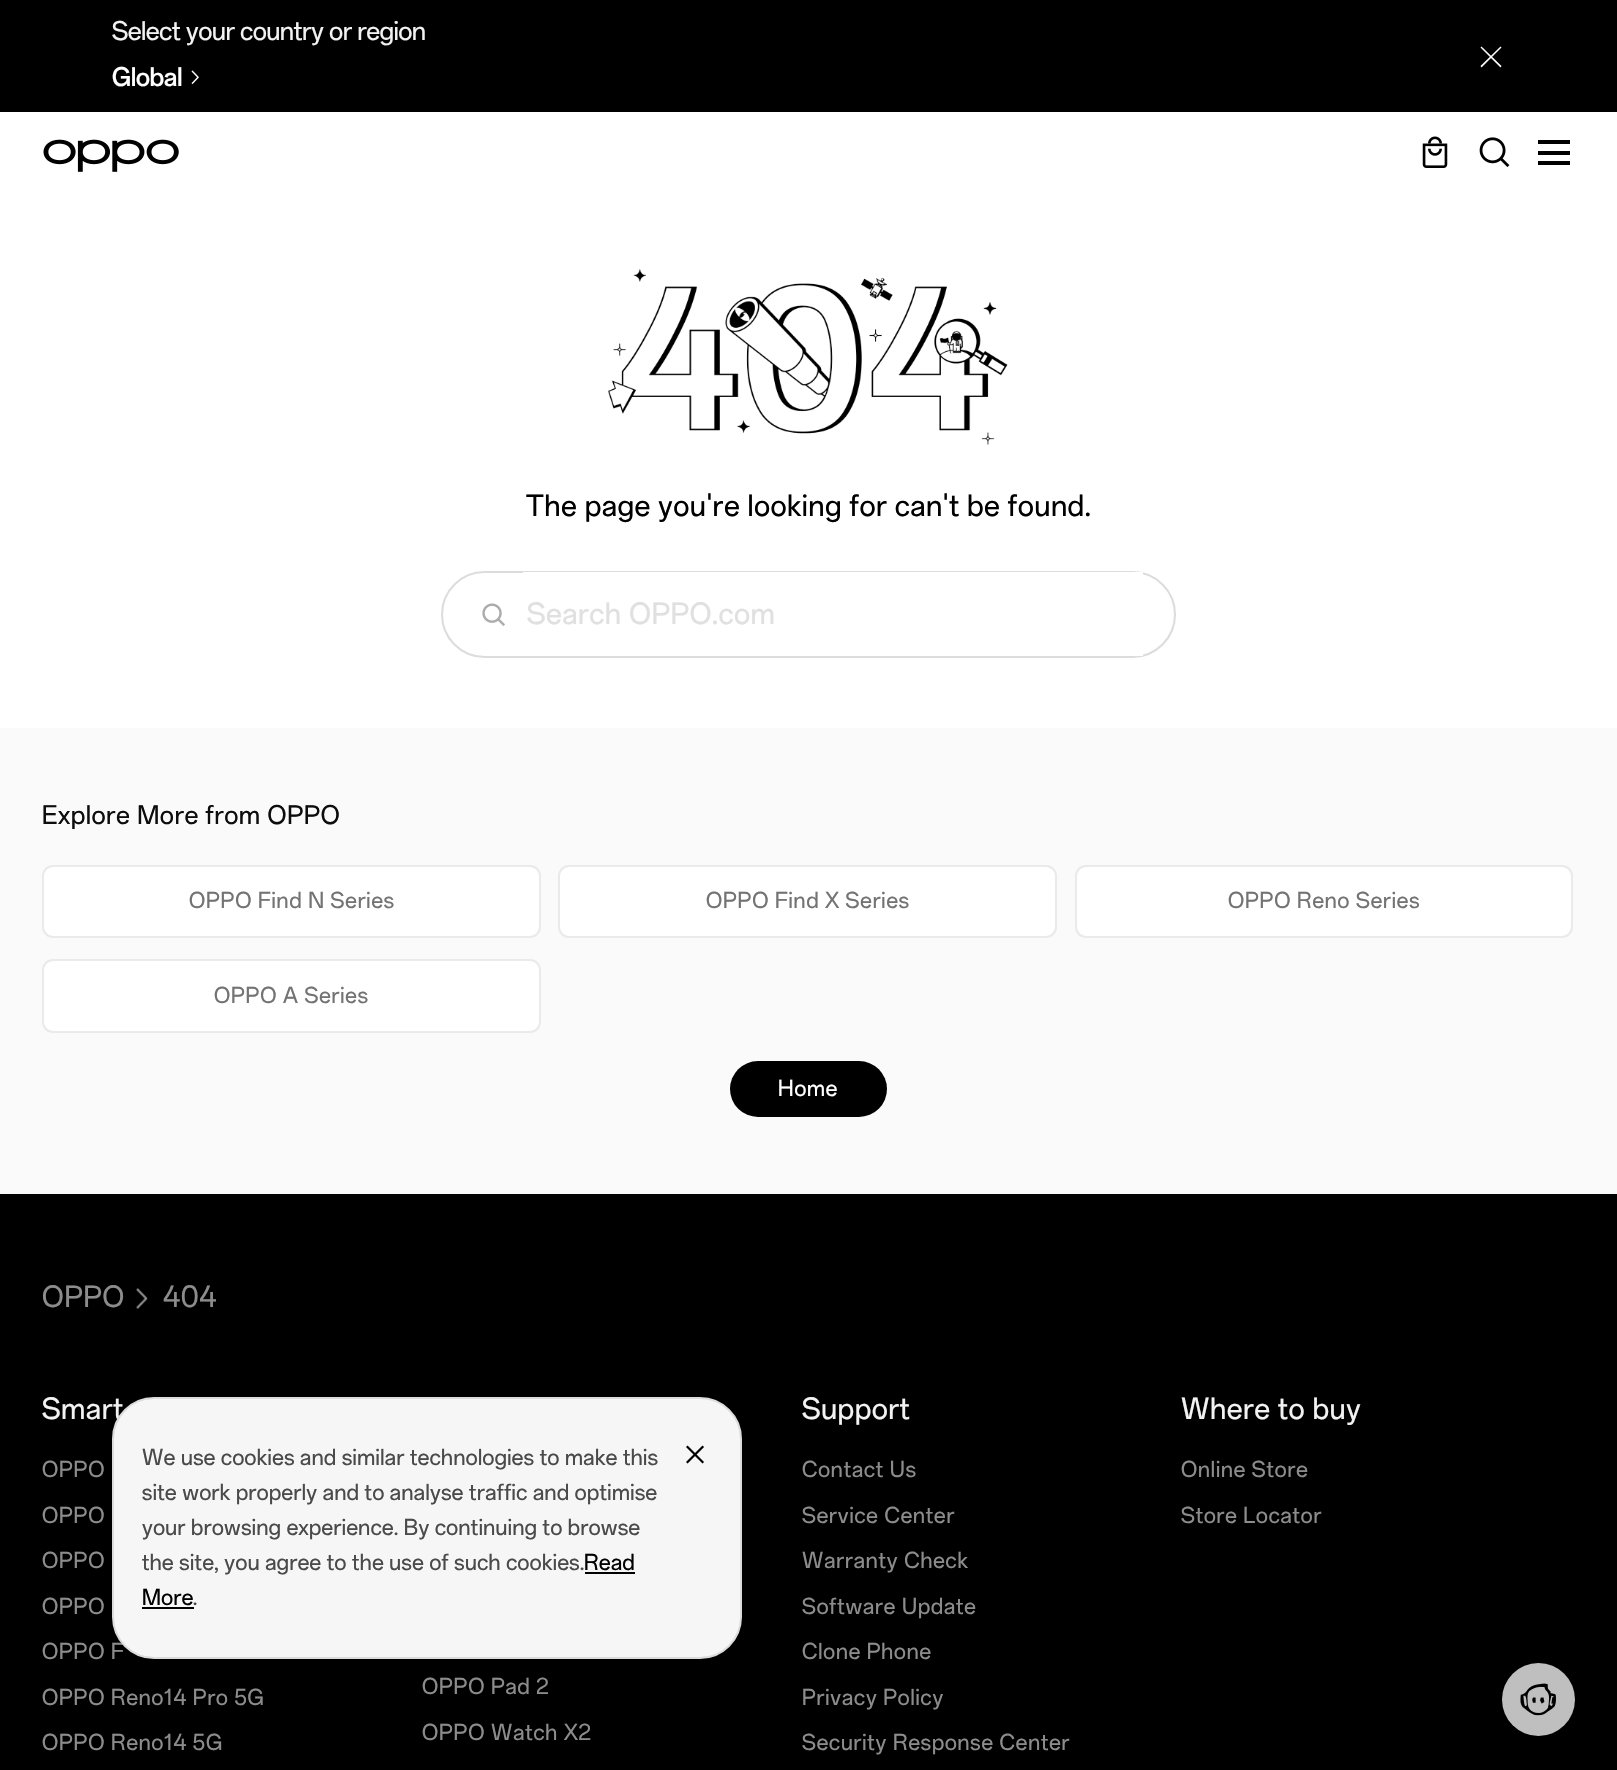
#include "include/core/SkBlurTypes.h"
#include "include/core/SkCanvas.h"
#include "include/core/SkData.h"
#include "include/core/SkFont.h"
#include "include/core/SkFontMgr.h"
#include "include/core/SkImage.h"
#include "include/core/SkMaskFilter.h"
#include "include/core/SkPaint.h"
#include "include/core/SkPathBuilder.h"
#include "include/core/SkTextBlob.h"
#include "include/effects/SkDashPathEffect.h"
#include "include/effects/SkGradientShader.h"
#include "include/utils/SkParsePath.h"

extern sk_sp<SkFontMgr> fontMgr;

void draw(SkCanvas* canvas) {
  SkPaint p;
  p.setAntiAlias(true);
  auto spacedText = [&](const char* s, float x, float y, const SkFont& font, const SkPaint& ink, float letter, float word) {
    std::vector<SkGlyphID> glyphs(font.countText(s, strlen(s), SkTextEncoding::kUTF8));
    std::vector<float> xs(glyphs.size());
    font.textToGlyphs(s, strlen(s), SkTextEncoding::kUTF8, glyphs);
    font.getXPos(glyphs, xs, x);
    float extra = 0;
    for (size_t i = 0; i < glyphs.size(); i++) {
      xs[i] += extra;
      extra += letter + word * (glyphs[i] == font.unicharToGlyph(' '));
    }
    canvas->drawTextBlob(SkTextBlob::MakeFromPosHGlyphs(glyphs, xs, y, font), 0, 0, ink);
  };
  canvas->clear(SK_ColorWHITE);
  p.setColor(SK_ColorBLACK);
  canvas->drawRect(SkRect::MakeLTRB(0, 0, 1617, 112), p);
  p.setColor(SK_ColorWHITE);
  canvas->drawPath(SkPathBuilder().moveTo(1481.5f, 46.5f).lineTo(1501.5f, 66).lineTo(1500.5f, 67.5f).lineTo(1480.5f, 47.5f).close().detach(), p);
  canvas->drawPath(SkPathBuilder().moveTo(1480.5f, 66).lineTo(1500.5f, 46.5f).lineTo(1501.5f, 47.5f).lineTo(1481.5f, 67.5f).close().detach(), p);
  canvas->drawImageRect(SkImages::DeferredFromEncodedData(SkData::MakeFromFileName("images/1.png")), SkRect::MakeLTRB(191, 70, 199, 85), SkSamplingOptions());
  canvas->drawImageRect(SkImages::DeferredFromEncodedData(SkData::MakeFromFileName("images/2.png")), SkRect::MakeLTRB(43, 139, 179, 172), SkSamplingOptions());
  canvas->drawImageRect(SkImages::DeferredFromEncodedData(SkData::MakeFromFileName("images/3.png")), SkRect::MakeLTRB(1422, 136, 1448, 168), SkSamplingOptions());
  canvas->drawImageRect(SkImages::DeferredFromEncodedData(SkData::MakeFromFileName("images/4.png")), SkRect::MakeLTRB(1479, 137, 1510, 167), SkSamplingOptions());
  p.setColor(SK_ColorBLACK);
  canvas->drawRect(SkRect::MakeLTRB(1538, 151, 1570, 155), p);
  canvas->drawRect(SkRect::MakeLTRB(1538, 140, 1570, 144), p);
  canvas->drawRect(SkRect::MakeLTRB(1538, 161, 1570, 165), p);
  canvas->drawImageRect(SkImages::DeferredFromEncodedData(SkData::MakeFromFileName("images/6.png")), SkRect::MakeLTRB(608, 269, 1008, 445), SkSamplingOptions());
  p.setStyle(SkPaint::kStroke_Style);
  p.setStrokeWidth(2);
  p.setColor(SkColorSetRGB(220, 220, 220));
  canvas->drawRoundRect(SkRect::MakeLTRB(442, 572, 1175, 657), 42.5f, 42.5f, p);
  canvas->drawImageRect(SkImages::DeferredFromEncodedData(SkData::MakeFromFileName("images/7.png")), SkRect::MakeLTRB(482, 603, 505, 626), SkSamplingOptions());
  p.setStyle(SkPaint::kFill_Style);
  p.setColor(SK_ColorWHITE);
  canvas->drawRect(SkRect::MakeLTRB(523, 572, 1143, 656), p);
  p.setColor(SkColorSetRGB(250, 250, 250));
  canvas->drawRect(SkRect::MakeLTRB(0, 728, 1617, 1194), p);
  p.setColor(SK_ColorWHITE);
  canvas->drawRoundRect(SkRect::MakeLTRB(43, 866, 540, 937), 10, 10, p);
  p.setStyle(SkPaint::kStroke_Style);
  p.setColor(SkColorSetRGB(234, 234, 234));
  canvas->drawRoundRect(SkRect::MakeLTRB(43, 866, 540, 937), 10, 10, p);
  p.setStyle(SkPaint::kFill_Style);
  p.setColor(SK_ColorWHITE);
  canvas->drawRoundRect(SkRect::MakeLTRB(559, 866, 1056, 937), 10, 10, p);
  p.setStyle(SkPaint::kStroke_Style);
  p.setColor(SkColorSetRGB(234, 234, 234));
  canvas->drawRoundRect(SkRect::MakeLTRB(559, 866, 1056, 937), 10, 10, p);
  p.setStyle(SkPaint::kFill_Style);
  p.setColor(SK_ColorWHITE);
  canvas->drawRoundRect(SkRect::MakeLTRB(1076, 866, 1572, 937), 10, 10, p);
  p.setStyle(SkPaint::kStroke_Style);
  p.setColor(SkColorSetRGB(234, 234, 234));
  canvas->drawRoundRect(SkRect::MakeLTRB(1076, 866, 1572, 937), 10, 10, p);
  p.setStyle(SkPaint::kFill_Style);
  p.setColor(SK_ColorWHITE);
  canvas->drawRoundRect(SkRect::MakeLTRB(43, 960, 540, 1032), 10, 10, p);
  p.setStyle(SkPaint::kStroke_Style);
  p.setColor(SkColorSetRGB(234, 234, 234));
  canvas->drawRoundRect(SkRect::MakeLTRB(43, 960, 540, 1032), 10, 10, p);
  p.setStyle(SkPaint::kFill_Style);
  p.setColor(SK_ColorBLACK);
  canvas->drawRoundRect(SkRect::MakeLTRB(730, 1061, 887, 1117), 28, 28, p);
  canvas->drawRect(SkRect::MakeLTRB(0, 1194, 1617, 1770), p);
  canvas->drawImageRect(SkImages::DeferredFromEncodedData(SkData::MakeFromFileName("images/8.png")), SkRect::MakeLTRB(136, 1288, 148, 1309), SkSamplingOptions());
  p.setColor(SkColorSetRGB(191, 191, 191));
  canvas->drawCircle(1538.5f, 1699.5f, 36.5f, p);
  canvas->drawImageRect(SkImages::DeferredFromEncodedData(SkData::MakeFromFileName("images/9.png")), SkRect::MakeLTRB(1520, 1683, 1556, 1716), SkSamplingOptions());
  SkFont font1(fontMgr->matchFamilyStyle("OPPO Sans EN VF", SkFontStyle::Normal()), 24.5f);
  font1.setSubpixel(true);
  p.setColor(SkColorSetRGB(242, 242, 242));
  spacedText("Select your country or region", 112, 40, font1, p, -0.1f, 0);
  SkFont font2(fontMgr->matchFamilyStyle("OPPO Sans EN VF", SkFontStyle(500, SkFontStyle::kNormal_Width, SkFontStyle::kUpright_Slant)), 24.5f);
  font2.setSubpixel(true);
  p.setColor(SK_ColorWHITE);
  canvas->drawString("Global", 112, 86, font2, p);
  SkFont font3(fontMgr->matchFamilyStyle("OPPO Sans EN VF", SkFontStyle::Normal()), 28);
  font3.setSubpixel(true);
  p.setColor(SK_ColorBLACK);
  spacedText("The page you're looking for can't be found.", 526, 516, font3, p, 0.9f, 0);
  p.setColor(SkColorSetRGB(224, 224, 224));
  spacedText("Search OPPO.com", 527, 624, font3, p, 0.9f, 0);
  p.setColor(SkColorSetRGB(13, 13, 13));
  spacedText("Explore More from OPPO", 42, 824, font1, p, 0.9f, 0);
  SkFont font4(fontMgr->matchFamilyStyle("OPPO Sans EN VF", SkFontStyle::Normal()), 21);
  font4.setSubpixel(true);
  p.setColor(SkColorSetRGB(115, 115, 115));
  spacedText("OPPO Find N Series", 189, 908, font4, p, 0.9f, 0);
  spacedText("OPPO Find X Series", 706, 908, font4, p, 0.9f, 0);
  spacedText("OPPO Reno Series", 1228, 908, font4, p, 0.9f, 0);
  spacedText("OPPO A Series", 214, 1003, font4, p, 0.9f, 0);
  p.setColor(SK_ColorWHITE);
  spacedText("Home", 778, 1096, font4, p, 0.9f, 0);
  p.setColor(SkColorSetRGB(140, 140, 140));
  spacedText("OPPO", 42, 1307, font3, p, 0.9f, 0);
  spacedText("404", 163, 1307, font3, p, 0.9f, 0);
  p.setColor(SkColorSetRGB(242, 242, 242));
  spacedText("Smart", 42, 1419, font3, p, 0.9f, 0);
  p.setColor(SkColorSetRGB(140, 140, 140));
  spacedText("OPPO", 42, 1477, font4, p, 0.9f, 0);
  spacedText("OPPO", 42, 1523, font4, p, 0.9f, 0);
  spacedText("OPPO", 42, 1568, font4, p, 0.9f, 0);
  spacedText("OPPO", 42, 1614, font4, p, 0.9f, 0);
  spacedText("OPPO F", 42, 1659, font4, p, 0.9f, 0);
  p.setColor(SkColorSetRGB(246, 246, 246));
  canvas->drawRoundRect(SkRect::MakeLTRB(113, 1398, 741, 1658), 41, 41, p);
  p.setStyle(SkPaint::kStroke_Style);
  p.setColor(SkColorSetRGB(220, 220, 220));
  canvas->drawRoundRect(SkRect::MakeLTRB(113, 1398, 741, 1658), 41, 41, p);
  canvas->drawImageRect(SkImages::DeferredFromEncodedData(SkData::MakeFromFileName("images/5.png")), SkRect::MakeLTRB(686, 1445, 704, 1464), SkSamplingOptions());
  p.setStyle(SkPaint::kFill_Style);
  p.setColor(SkColorSetRGB(74, 74, 74));
  spacedText(".", 193, 1605, font4, p, 0.45f, 0);
  p.setColor(SK_ColorBLACK);
  spacedText("More", 142, 1605, font4, p, 0.45f, 0);
  canvas->drawRect(SkRect::MakeLTRB(142, 1607, 194, 1609), p);
  spacedText("Read", 584, 1570, font4, p, 0.45f, 0);
  canvas->drawRect(SkRect::MakeLTRB(585, 1572, 635, 1574), p);
  p.setColor(SkColorSetRGB(74, 74, 74));
  spacedText("the site, you agree to the use of such cookies.", 142, 1570, font4, p, 0.45f, 0);
  spacedText("your browsing experience. By continuing to browse", 142, 1535, font4, p, 0.45f, 0);
  spacedText("site work properly and to analyse traffic and optimise", 142, 1500, font4, p, 0.45f, 0);
  spacedText("We use cookies and similar technologies to make this", 142, 1465, font4, p, 0.45f, 0);
  p.setColor(SkColorSetRGB(140, 140, 140));
  spacedText("OPPO Reno14 Pro 5G", 42, 1705, font4, p, 0.9f, 0);
  spacedText("OPPO Reno14 5G", 42, 1750, font4, p, 0.9f, 0);
  p.setColor(SkColorSetRGB(242, 242, 242));
  spacedText("Support", 802, 1419, font3, p, 0.9f, 0);
  p.setColor(SkColorSetRGB(140, 140, 140));
  spacedText("Contact Us", 802, 1477, font4, p, 0.9f, 0);
  spacedText("Service Center", 802, 1523, font4, p, 0.9f, 0);
  spacedText("Warranty Check", 802, 1568, font4, p, 0.9f, 0);
  spacedText("Software Update", 802, 1614, font4, p, 0.9f, 0);
  spacedText("Clone Phone", 802, 1659, font4, p, 0.9f, 0);
  spacedText("Privacy Policy", 802, 1705, font4, p, 0.9f, 0);
  spacedText("Security Response Center", 802, 1750, font4, p, 0.9f, 0);
  p.setColor(SkColorSetRGB(242, 242, 242));
  spacedText("Where to buy", 1181, 1419, font3, p, 0.9f, 0);
  p.setColor(SkColorSetRGB(140, 140, 140));
  spacedText("Online Store", 1181, 1477, font4, p, 0.9f, 0);
  spacedText("Store Locator", 1181, 1523, font4, p, 0.9f, 0);
  spacedText("OPPO Pad 2", 422, 1694, font4, p, 0.9f, 0);
  spacedText("OPPO Watch X2", 422, 1740, font4, p, 0.9f, 0);
}
